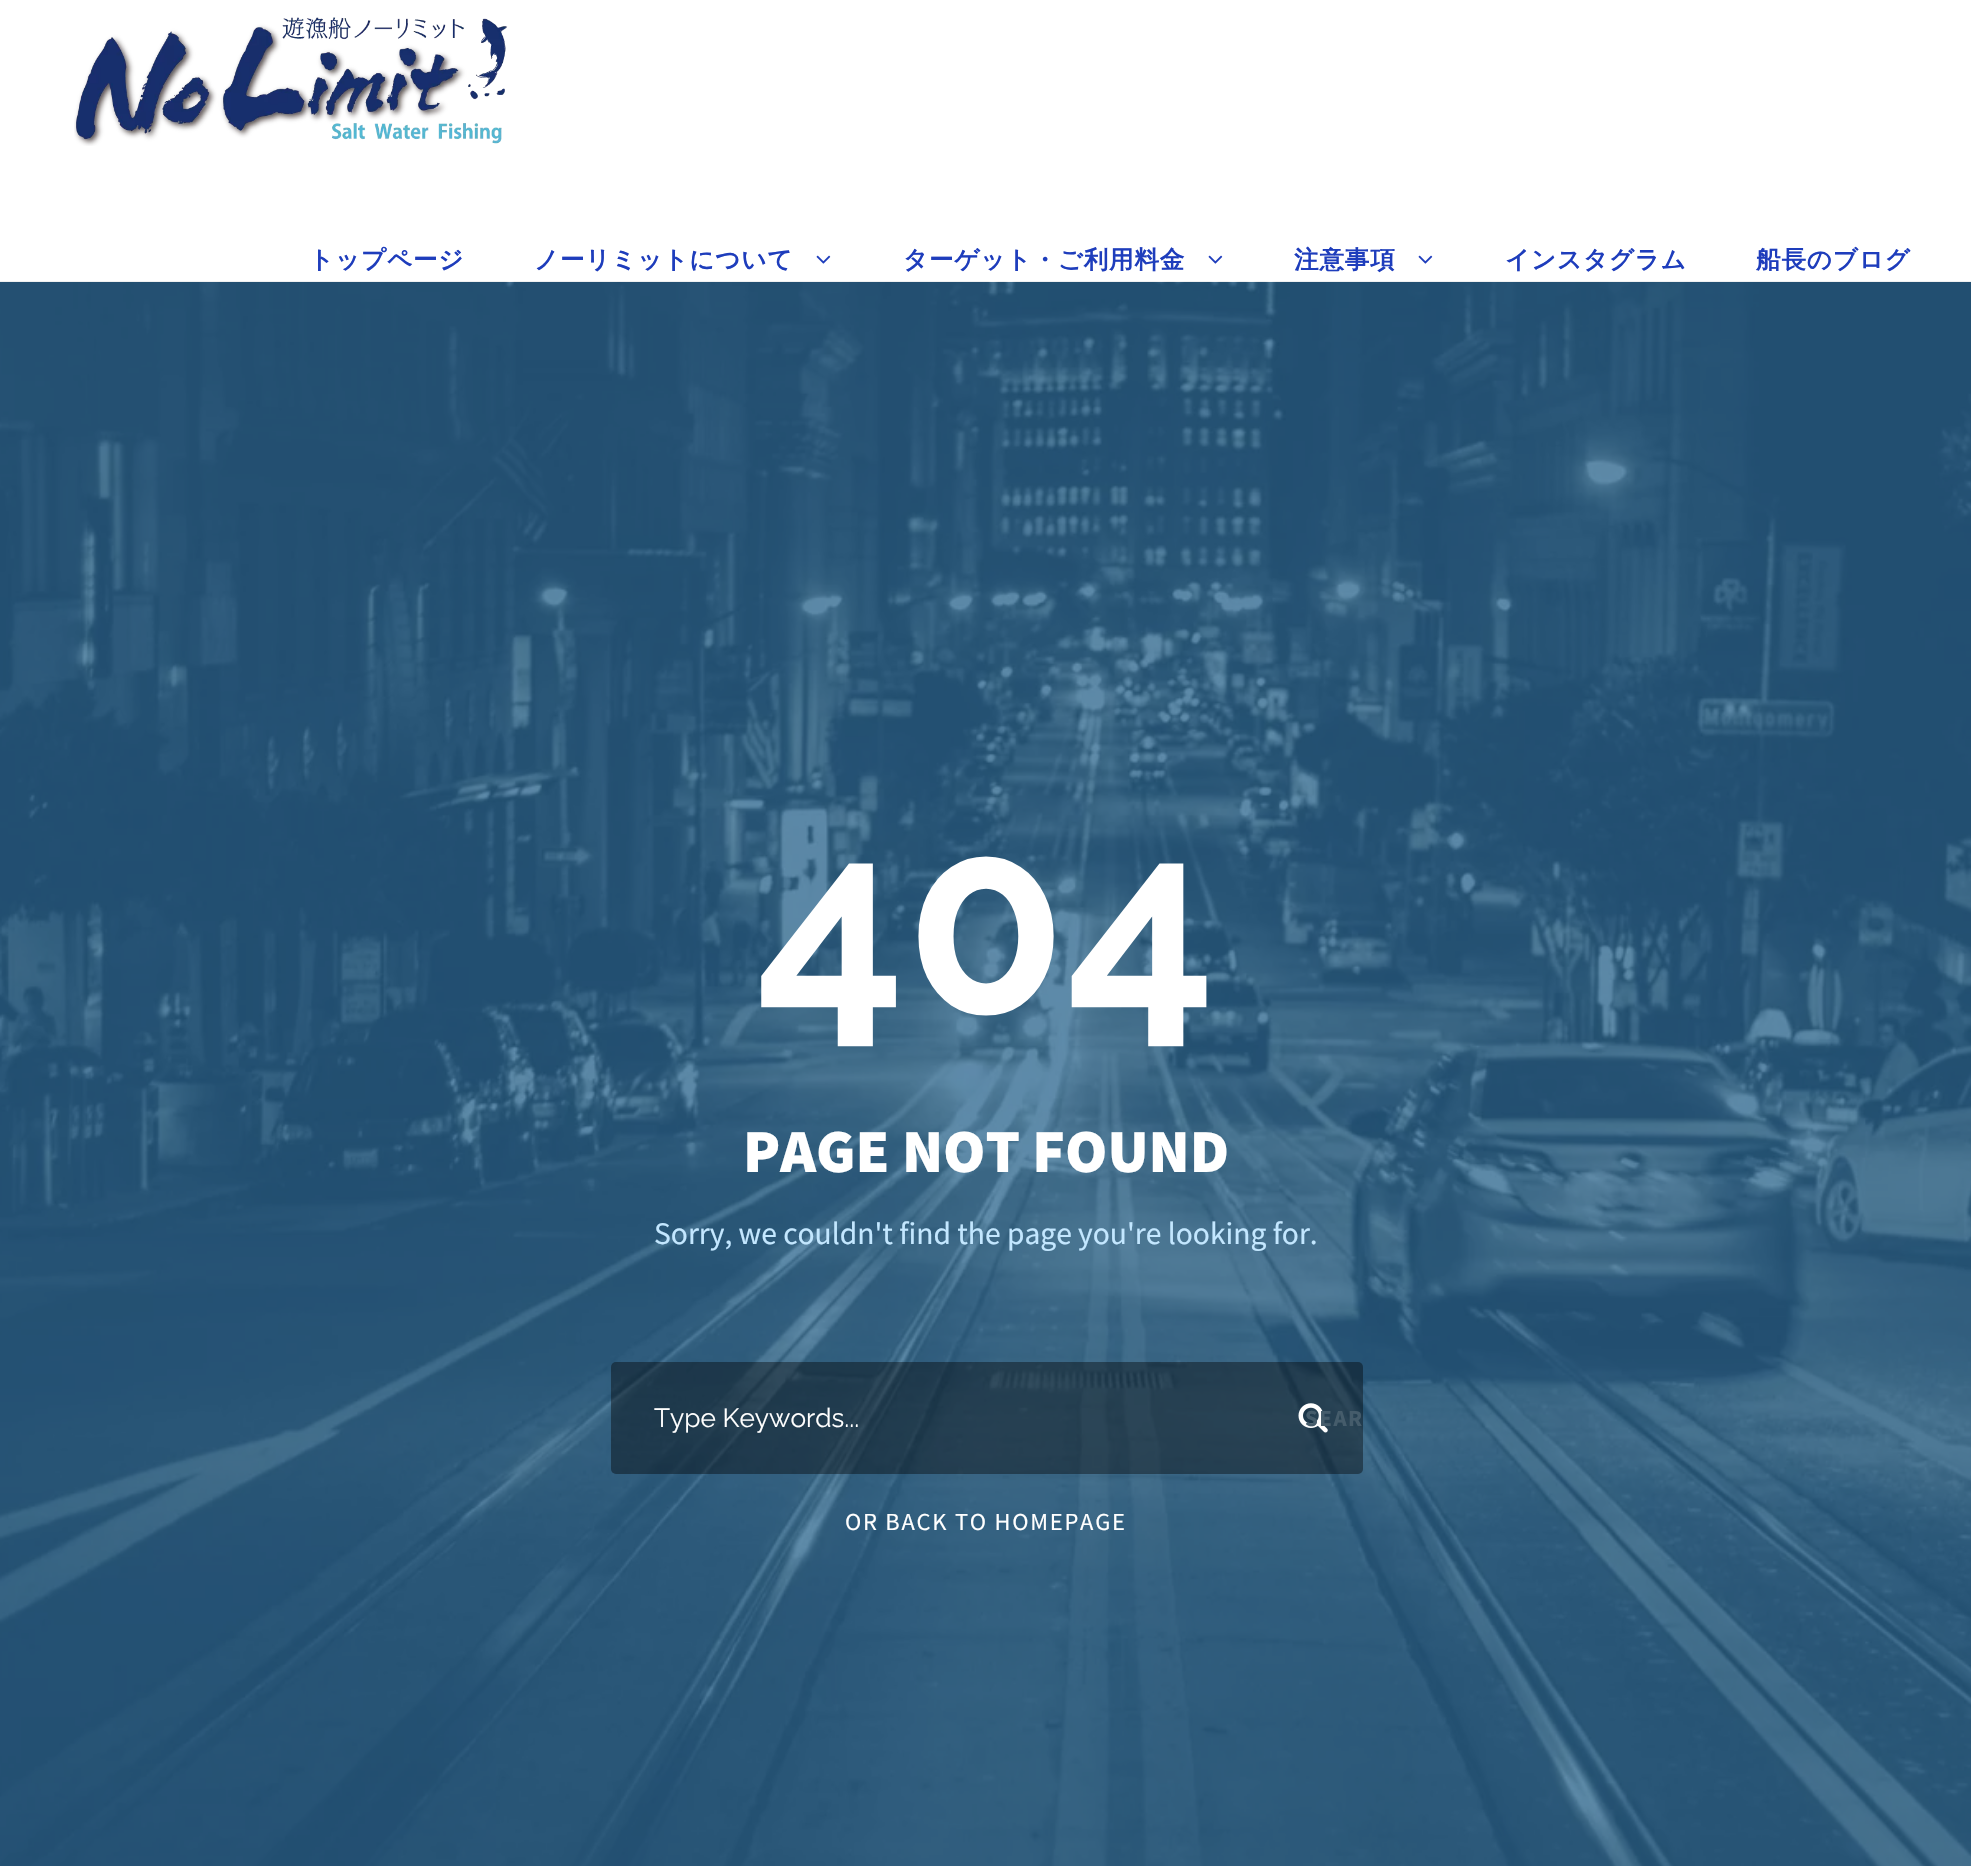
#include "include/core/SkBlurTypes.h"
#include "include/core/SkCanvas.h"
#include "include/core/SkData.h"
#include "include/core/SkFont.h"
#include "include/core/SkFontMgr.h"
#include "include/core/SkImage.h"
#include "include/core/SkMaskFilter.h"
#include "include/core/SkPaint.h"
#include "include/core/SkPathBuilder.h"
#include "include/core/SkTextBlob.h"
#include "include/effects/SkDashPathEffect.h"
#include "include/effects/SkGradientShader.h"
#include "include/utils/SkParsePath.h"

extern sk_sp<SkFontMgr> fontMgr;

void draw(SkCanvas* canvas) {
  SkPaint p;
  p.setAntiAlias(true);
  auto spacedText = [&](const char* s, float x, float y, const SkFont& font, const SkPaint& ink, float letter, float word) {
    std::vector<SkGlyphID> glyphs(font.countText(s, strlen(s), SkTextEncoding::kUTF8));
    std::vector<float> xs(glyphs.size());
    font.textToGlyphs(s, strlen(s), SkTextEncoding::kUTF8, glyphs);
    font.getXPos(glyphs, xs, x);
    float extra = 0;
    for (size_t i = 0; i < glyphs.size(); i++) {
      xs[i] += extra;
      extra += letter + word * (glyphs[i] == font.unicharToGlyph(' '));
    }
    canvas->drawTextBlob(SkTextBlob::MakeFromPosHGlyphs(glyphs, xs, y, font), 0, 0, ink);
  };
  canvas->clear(SK_ColorWHITE);
  canvas->drawImageRect(SkImages::DeferredFromEncodedData(SkData::MakeFromFileName("images/1.png")), SkRect::MakeLTRB(74, 17, 508, 146), SkSamplingOptions());
  canvas->drawImageRect(SkImages::DeferredFromEncodedData(SkData::MakeFromFileName("images/2.png")), SkRect::MakeLTRB(816, 255, 831, 264), SkSamplingOptions());
  canvas->drawImageRect(SkImages::DeferredFromEncodedData(SkData::MakeFromFileName("images/2.png")), SkRect::MakeLTRB(1208, 255, 1223, 264), SkSamplingOptions());
  canvas->drawImageRect(SkImages::DeferredFromEncodedData(SkData::MakeFromFileName("images/2.png")), SkRect::MakeLTRB(1418, 255, 1433, 264), SkSamplingOptions());
  p.setColor(SkColorSetRGB(35, 97, 142));
  canvas->drawRect(SkRect::MakeLTRB(0, 282, 1971, 1866), p);
  canvas->drawImageRect(SkImages::DeferredFromEncodedData(SkData::MakeFromFileName("images/3.png")), SkRect::MakeLTRB(0, 281, 1971, 1866), SkSamplingOptions());
  p.setColor(SkColorSetARGB(102, 0, 0, 0));
  canvas->drawRoundRect(SkRect::MakeLTRB(611, 1362, 1363, 1474), 5, 5, p);
  canvas->drawImageRect(SkImages::DeferredFromEncodedData(SkData::MakeFromFileName("images/4.png")), SkRect::MakeLTRB(1298, 1403, 1328, 1433), SkSamplingOptions());
  SkFont font1(fontMgr->matchFamilyStyle("WenQuanYi Zen Hei", SkFontStyle::Bold()), 24.5f);
  font1.setSubpixel(true);
  p.setColor(SkColorSetRGB(30, 61, 188));
  spacedText("トップページ", 309, 268, font1, p, 0.9f, 0);
  spacedText("ノーリミットについて", 534, 268, font1, p, 0.9f, 0);
  spacedText("ターゲット・ご利用料金", 903, 268, font1, p, 0.9f, 0);
  spacedText("注意事項", 1294, 268, font1, p, 0.9f, 0);
  spacedText("インスタグラム", 1505, 268, font1, p, 0.9f, 0);
  spacedText("船長のブログ", 1756, 268, font1, p, 0.9f, 0);
  SkFont font2(fontMgr->matchFamilyStyle("Raleway", SkFontStyle::Bold()), 262);
  font2.setSubpixel(true);
  p.setColor(SK_ColorWHITE);
  canvas->drawString("404", 756, 1013, font2, p);
  SkFont font3(fontMgr->matchFamilyStyle("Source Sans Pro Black", SkFontStyle(900, SkFontStyle::kNormal_Width, SkFontStyle::kUpright_Slant)), 61.25f);
  font3.setSubpixel(true);
  canvas->drawString("PAGE NOT FOUND", 743, 1172, font3, p);
  SkFont font4(fontMgr->matchFamilyStyle("Source Sans Pro", SkFontStyle::Normal()), 31.5f);
  font4.setSubpixel(true);
  p.setColor(SkColorSetRGB(195, 231, 255));
  canvas->drawString("Sorry, we couldn't find the page you're looking for.", 654, 1244, font4, p);
  SkFont font5(fontMgr->matchFamilyStyle("Raleway", SkFontStyle::Normal()), 26.25f);
  font5.setSubpixel(true);
  p.setColor(SK_ColorWHITE);
  canvas->drawString("Type Keywords...", 654, 1427, font5, p);
  SkFont font6(fontMgr->matchFamilyStyle("Source Sans Pro", SkFontStyle::Bold()), 23);
  font6.setSubpixel(true);
  p.setColor(SkColorSetRGB(69, 92, 107));
  spacedText("SEAR", 1305, 1426, font6, p, 1.5f, 0);
  SkFont font7(fontMgr->matchFamilyStyle("Source Sans Pro", SkFontStyle::Normal()), 24.5f);
  font7.setSubpixel(true);
  p.setColor(SK_ColorWHITE);
  spacedText("OR BACK TO HOMEPAGE", 845, 1530, font7, p, 1.75f, 0);
}
